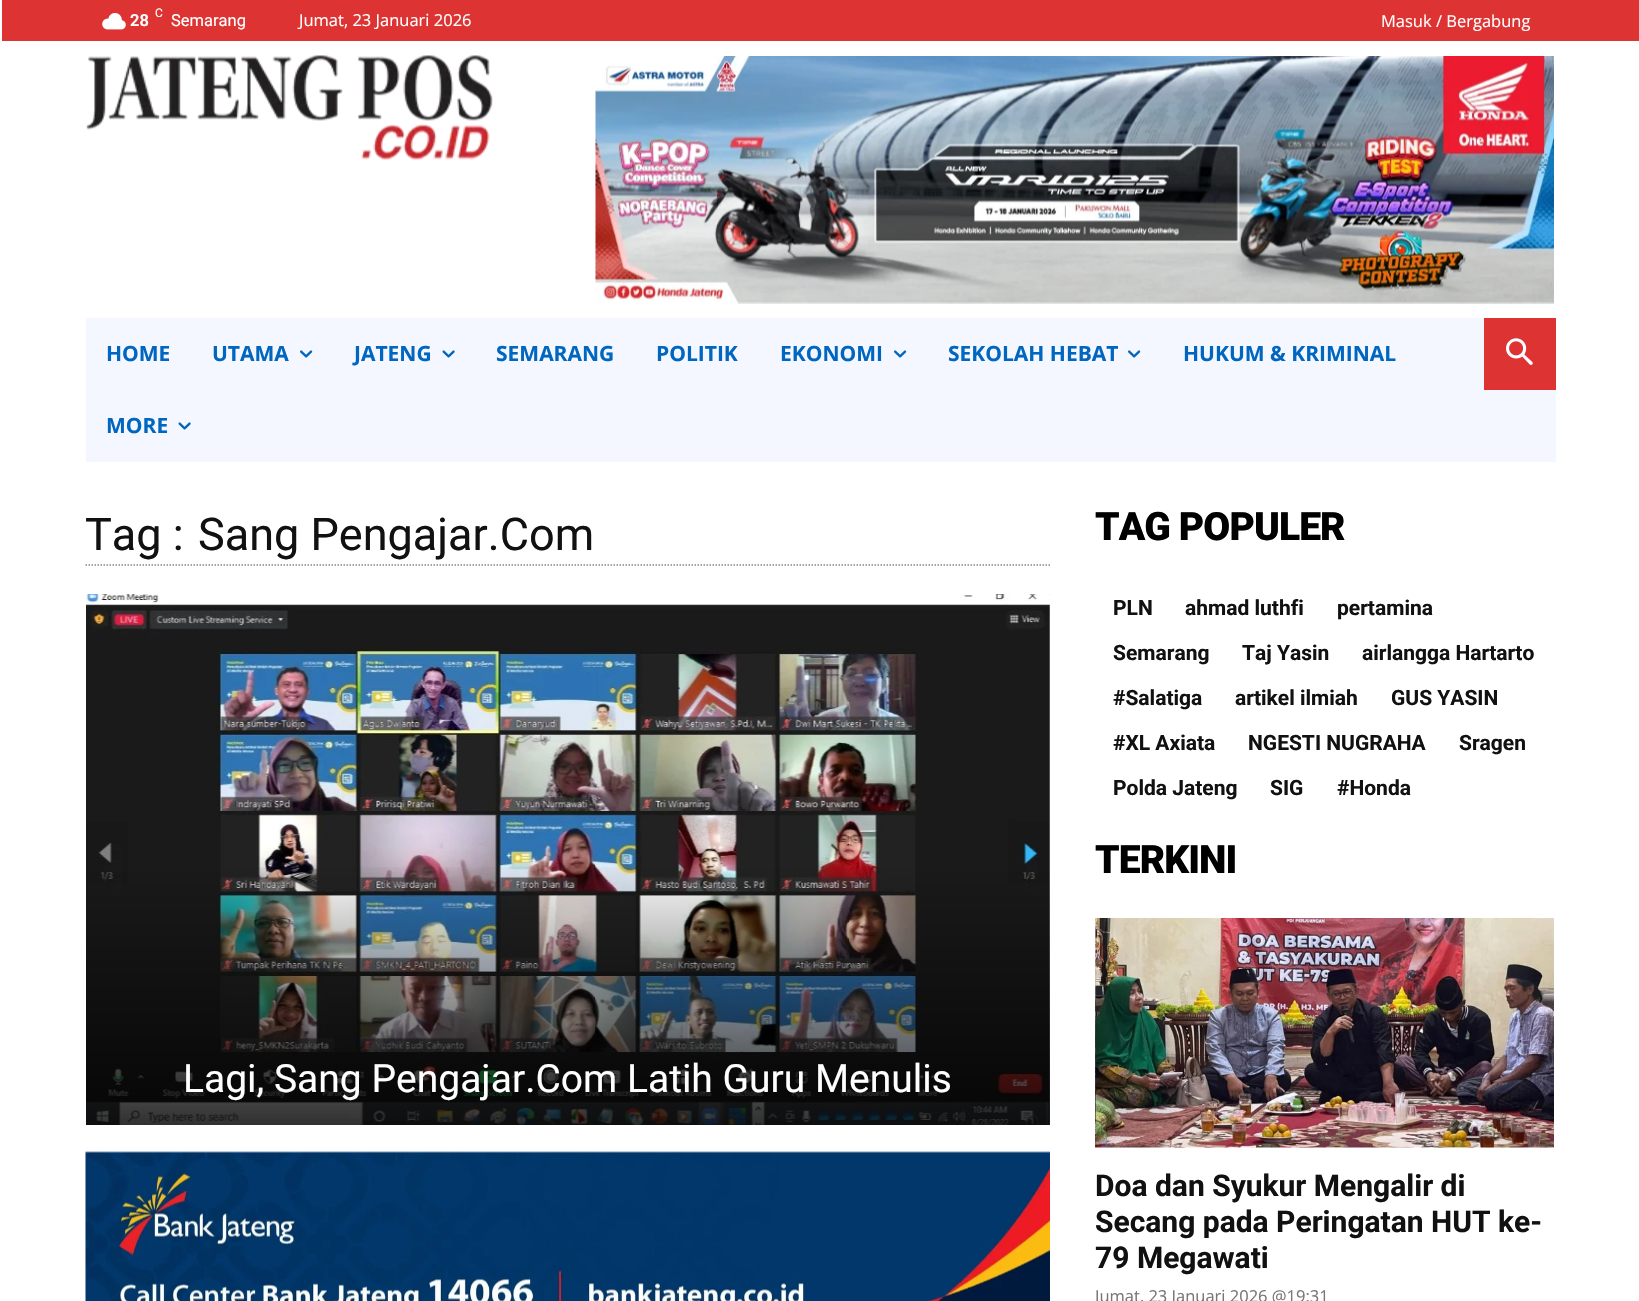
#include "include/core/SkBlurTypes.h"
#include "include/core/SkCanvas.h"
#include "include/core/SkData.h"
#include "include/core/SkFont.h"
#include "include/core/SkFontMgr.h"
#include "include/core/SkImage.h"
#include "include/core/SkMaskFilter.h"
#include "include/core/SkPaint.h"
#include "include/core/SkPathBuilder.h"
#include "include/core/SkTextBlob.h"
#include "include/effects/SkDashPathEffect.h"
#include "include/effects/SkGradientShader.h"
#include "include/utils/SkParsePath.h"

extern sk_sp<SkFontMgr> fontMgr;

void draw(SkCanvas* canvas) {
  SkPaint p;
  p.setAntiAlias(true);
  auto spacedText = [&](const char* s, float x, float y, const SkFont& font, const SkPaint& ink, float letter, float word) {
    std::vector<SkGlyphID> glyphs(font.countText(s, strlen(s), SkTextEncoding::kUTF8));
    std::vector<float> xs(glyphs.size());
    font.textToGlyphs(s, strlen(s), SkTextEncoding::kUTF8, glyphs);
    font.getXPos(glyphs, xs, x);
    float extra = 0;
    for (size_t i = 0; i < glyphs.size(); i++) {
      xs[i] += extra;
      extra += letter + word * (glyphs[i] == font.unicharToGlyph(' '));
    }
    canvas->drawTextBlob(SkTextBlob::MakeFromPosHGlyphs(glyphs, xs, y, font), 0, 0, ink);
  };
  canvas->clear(SK_ColorWHITE);
  p.setColor(SkColorSetRGB(221, 51, 51));
  canvas->drawRect(SkRect::MakeLTRB(2, 0, 1639, 41), p);
  canvas->drawImageRect(SkImages::DeferredFromEncodedData(SkData::MakeFromFileName("images/1.png")), SkRect::MakeLTRB(102, 13, 126, 30), SkSamplingOptions());
  canvas->drawImageRect(SkImages::DeferredFromEncodedData(SkData::MakeFromFileName("images/2.png")), SkRect::MakeLTRB(86, 55, 493, 160), SkSamplingOptions());
  canvas->drawImageRect(SkImages::DeferredFromEncodedData(SkData::MakeFromFileName("images/3.png")), SkRect::MakeLTRB(595, 56, 1554, 304), SkSamplingOptions());
  p.setColor(SkColorSetRGB(244, 247, 255));
  canvas->drawRect(SkRect::MakeLTRB(86, 318, 1556, 462), p);
  canvas->drawImageRect(SkImages::DeferredFromEncodedData(SkData::MakeFromFileName("images/4.png")), SkRect::MakeLTRB(300, 350, 313, 358), SkSamplingOptions());
  canvas->drawImageRect(SkImages::DeferredFromEncodedData(SkData::MakeFromFileName("images/5.png")), SkRect::MakeLTRB(442, 350, 455, 358), SkSamplingOptions());
  canvas->drawImageRect(SkImages::DeferredFromEncodedData(SkData::MakeFromFileName("images/4.png")), SkRect::MakeLTRB(894, 350, 907, 358), SkSamplingOptions());
  canvas->drawImageRect(SkImages::DeferredFromEncodedData(SkData::MakeFromFileName("images/4.png")), SkRect::MakeLTRB(1128, 350, 1141, 358), SkSamplingOptions());
  canvas->drawImageRect(SkImages::DeferredFromEncodedData(SkData::MakeFromFileName("images/5.png")), SkRect::MakeLTRB(178, 422, 191, 430), SkSamplingOptions());
  p.setColor(SkColorSetRGB(221, 51, 51));
  canvas->drawRect(SkRect::MakeLTRB(1484, 318, 1556, 390), p);
  canvas->drawImageRect(SkImages::DeferredFromEncodedData(SkData::MakeFromFileName("images/6.png")), SkRect::MakeLTRB(1506, 338, 1533, 365), SkSamplingOptions());
  p.setStyle(SkPaint::kStroke_Style);
  p.setStrokeWidth(1.5f);
  p.setColor(SkColorSetRGB(136, 136, 136));
  p.setPathEffect(SkDashPathEffect::Make({{1.5f, 1.5f}}, 0));
  canvas->drawPath(SkPathBuilder().moveTo(85.5f, 565).lineTo(1050, 565).detach(), p);
  p.setPathEffect(nullptr);
  canvas->drawImageRect(SkImages::DeferredFromEncodedData(SkData::MakeFromFileName("images/7.png")), SkRect::MakeLTRB(1049, 594, 1050, 595), SkSamplingOptions());
  canvas->drawImageRect(SkImages::DeferredFromEncodedData(SkData::MakeFromFileName("images/8.png")), SkRect::MakeLTRB(86, 594, 1050, 1125), SkSamplingOptions());
  p.setStyle(SkPaint::kFill_Style);
  {
    const SkColor colors[] = {SkColorSetARGB(204, 0, 0, 0), SkColorSetARGB(0, 0, 0, 0), SkColorSetARGB(0, 0, 0, 0)};
    const float stops[] = {0, 0.5f, 1};
    const SkPoint ends[] = {{568, 1125}, {568, 594}};
    p.setShader(SkGradientShader::MakeLinear(ends, colors, stops, 3, SkTileMode::kClamp));
    p.setAlpha(255);
  }
  canvas->drawRect(SkRect::MakeLTRB(86, 867, 1050, 1125), p);
  canvas->drawImageRect(SkImages::DeferredFromEncodedData(SkData::MakeFromFileName("images/9.png")), SkRect::MakeLTRB(85, 1151, 1050, 1301), SkSamplingOptions());
  canvas->drawImageRect(SkImages::DeferredFromEncodedData(SkData::MakeFromFileName("images/10.png")), SkRect::MakeLTRB(1095, 918, 1554, 1148), SkSamplingOptions());
  SkFont font1(fontMgr->matchFamilyStyle("Roboto", SkFontStyle::Normal()), 12);
  font1.setSubpixel(true);
  p.setShader(nullptr);
  p.setColor(SK_ColorWHITE);
  canvas->drawString("C", 155, 17, font1, p);
  SkFont font2(fontMgr->matchFamilyStyle("Roboto", SkFontStyle(600, SkFontStyle::kNormal_Width, SkFontStyle::kUpright_Slant)), 16.5f);
  font2.setSubpixel(true);
  canvas->drawString("28", 130, 26, font2, p);
  SkFont font3(fontMgr->matchFamilyStyle("Roboto", SkFontStyle::Normal()), 16.5f);
  font3.setSubpixel(true);
  canvas->drawString("Semarang", 171, 26, font3, p);
  SkFont font4(fontMgr->matchFamilyStyle("Open Sans", SkFontStyle::Normal()), 16.5f);
  font4.setSubpixel(true);
  canvas->drawString("Jumat, 23 Januari 2026", 299, 26, font4, p);
  canvas->drawString("Masuk / Bergabung", 1381, 27, font4, p);
  SkFont font5(fontMgr->matchFamilyStyle("Open Sans", SkFontStyle::Bold()), 21);
  font5.setSubpixel(true);
  p.setColor(SkColorSetRGB(0, 102, 191));
  canvas->drawString("HOME", 106, 361, font5, p);
  canvas->drawString("UTAMA", 212, 361, font5, p);
  canvas->drawString("JATENG", 354, 361, font5, p);
  canvas->drawString("SEMARANG", 496, 361, font5, p);
  canvas->drawString("POLITIK", 656, 361, font5, p);
  canvas->drawString("EKONOMI", 780, 361, font5, p);
  canvas->drawString("SEKOLAH HEBAT", 948, 361, font5, p);
  canvas->drawString("HUKUM & KRIMINAL", 1183, 361, font5, p);
  canvas->drawString("MORE", 106, 433, font5, p);
  SkFont font6(fontMgr->matchFamilyStyle("Roboto", SkFontStyle::Normal()), 45);
  font6.setSubpixel(true);
  p.setColor(SkColorSetRGB(17, 17, 17));
  canvas->drawString("Tag :", 85, 550, font6, p);
  canvas->drawString("Sang Pengajar.Com", 198, 550, font6, p);
  SkFont font7(fontMgr->matchFamilyStyle("Roboto", SkFontStyle::Normal()), 39);
  font7.setSubpixel(true);
  p.setColor(SK_ColorWHITE);
  canvas->drawString("Lagi, Sang Pengajar.Com Latih Guru Menulis", 183, 1092, font7, p);
  SkFont font8(fontMgr->matchFamilyStyle("Roboto", SkFontStyle(900, SkFontStyle::kNormal_Width, SkFontStyle::kUpright_Slant)), 39);
  font8.setSubpixel(true);
  p.setColor(SK_ColorBLACK);
  spacedText("TAG POPULER", 1095, 540, font8, p, -0.9f, 0);
  SkFont font9(fontMgr->matchFamilyStyle("Roboto", SkFontStyle::Bold()), 21);
  font9.setSubpixel(true);
  p.setColor(SkColorSetRGB(17, 17, 17));
  canvas->drawString("PLN", 1113, 615, font9, p);
  canvas->drawString("ahmad luthfi", 1185, 615, font9, p);
  canvas->drawString("pertamina", 1337, 615, font9, p);
  canvas->drawString("Semarang", 1113, 660, font9, p);
  canvas->drawString("Taj Yasin", 1242, 660, font9, p);
  canvas->drawString("airlangga Hartarto", 1362, 660, font9, p);
  canvas->drawString("#Salatiga", 1113, 705, font9, p);
  canvas->drawString("artikel ilmiah", 1235, 705, font9, p);
  canvas->drawString("GUS YASIN", 1391, 705, font9, p);
  canvas->drawString("#XL Axiata", 1113, 750, font9, p);
  canvas->drawString("NGESTI NUGRAHA", 1248, 750, font9, p);
  canvas->drawString("Sragen", 1459, 750, font9, p);
  canvas->drawString("Polda Jateng", 1113, 795, font9, p);
  canvas->drawString("SIG", 1270, 795, font9, p);
  canvas->drawString("#Honda", 1337, 795, font9, p);
  p.setColor(SK_ColorBLACK);
  spacedText("TERKINI", 1095, 873, font8, p, -0.9f, 0);
  SkFont font10(fontMgr->matchFamilyStyle("Roboto", SkFontStyle::Bold()), 30);
  font10.setSubpixel(true);
  p.setColor(SkColorSetRGB(17, 17, 17));
  canvas->drawString("Doa dan Syukur Mengalir di", 1095, 1196, font10, p);
  canvas->drawString("Secang pada Peringatan HUT ke-", 1095, 1232, font10, p);
  canvas->drawString("79 Megawati", 1095, 1268, font10, p);
  p.setColor(SkColorSetRGB(118, 118, 118));
  canvas->drawString("Jumat, 23 Januari 2026 @19:31", 1095, 1302, font4, p);
}
